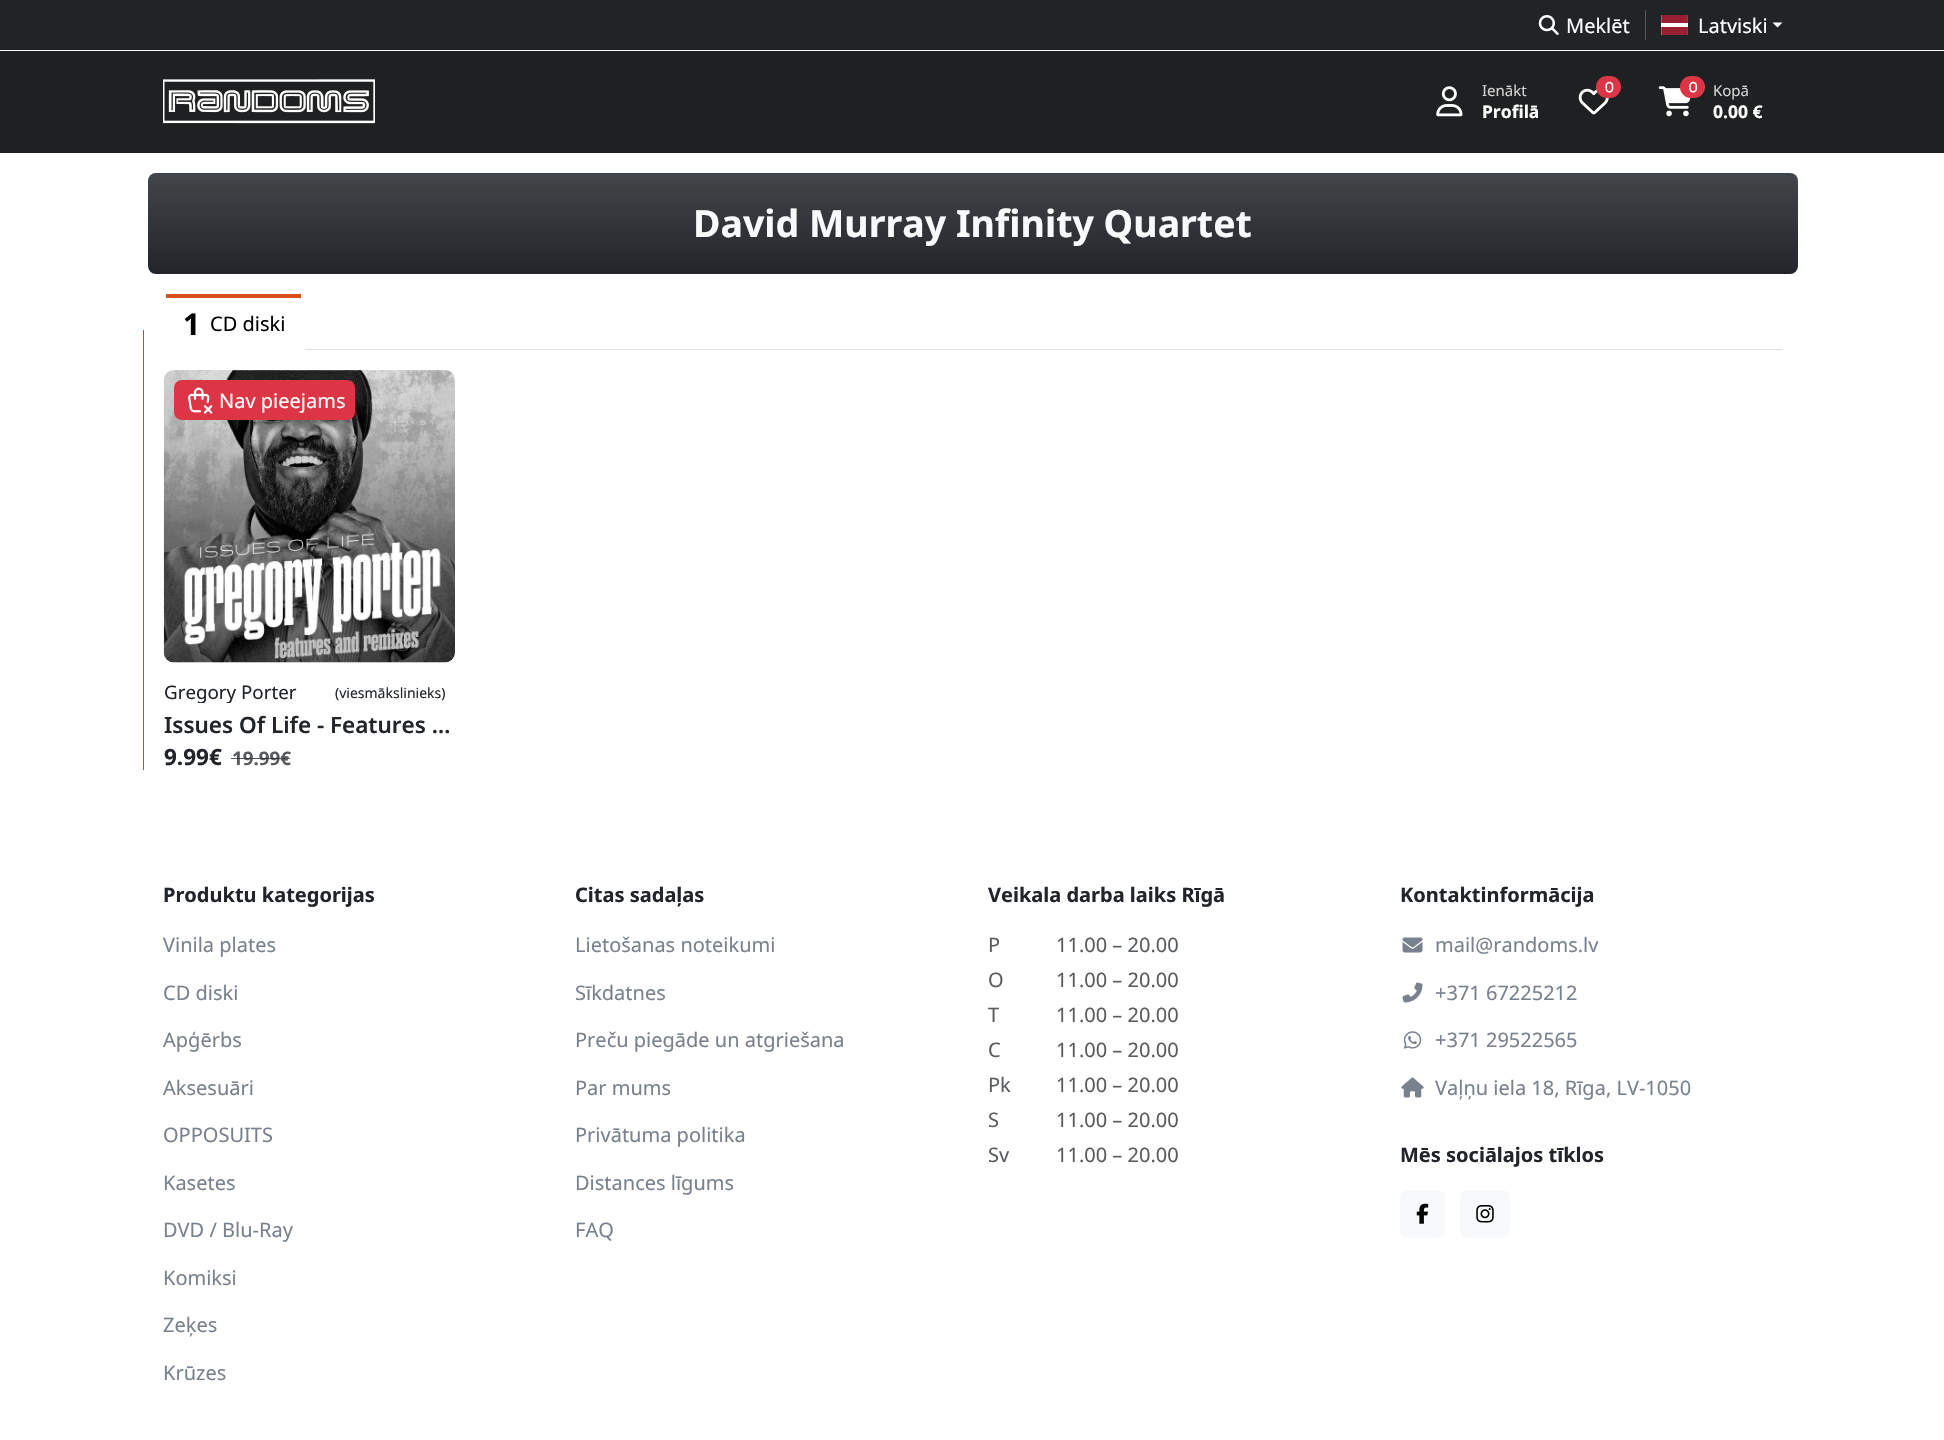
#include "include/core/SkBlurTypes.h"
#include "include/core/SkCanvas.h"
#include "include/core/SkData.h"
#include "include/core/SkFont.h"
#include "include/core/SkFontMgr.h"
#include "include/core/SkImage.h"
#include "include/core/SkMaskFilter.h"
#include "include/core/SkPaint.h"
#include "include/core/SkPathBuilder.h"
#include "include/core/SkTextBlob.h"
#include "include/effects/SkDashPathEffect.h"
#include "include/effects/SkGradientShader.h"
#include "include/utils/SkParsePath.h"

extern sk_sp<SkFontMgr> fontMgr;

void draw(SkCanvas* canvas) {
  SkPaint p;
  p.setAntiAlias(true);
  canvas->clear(SK_ColorWHITE);
  p.setColor(SkColorSetRGB(30, 32, 33));
  canvas->drawRect(SkRect::MakeLTRB(0, 51, 1944, 153), p);
  p.setColor(SkColorSetRGB(32, 36, 39));
  canvas->drawRect(SkRect::MakeLTRB(0, 0, 1944, 50), p);
  p.setColor(SkColorSetRGB(248, 249, 250));
  canvas->drawRect(SkRect::MakeLTRB(0, 50, 1944, 51), p);
  canvas->drawImageRect(SkImages::DeferredFromEncodedData(SkData::MakeFromFileName("images/1.png")), SkRect::MakeLTRB(1538, 15, 1559, 35), SkSamplingOptions());
  p.setColor(SkColorSetRGB(88, 91, 93));
  canvas->drawRect(SkRect::MakeLTRB(1645, 10, 1646, 40), p);
  canvas->drawImageRect(SkImages::DeferredFromEncodedData(SkData::MakeFromFileName("images/2.png")), SkRect::MakeLTRB(1661, 15, 1688, 35), SkSamplingOptions());
  p.setColor(SK_ColorWHITE);
  canvas->drawPath(SkPathBuilder().moveTo(1772.5f, 22.5f).lineTo(1782.5f, 22.5f).lineTo(1777.5f, 27.5f).close().detach(), p);
  canvas->drawImageRect(SkImages::DeferredFromEncodedData(SkData::MakeFromFileName("images/3.png")), SkRect::MakeLTRB(163, 79, 375, 124), SkSamplingOptions());
  canvas->drawImageRect(SkImages::DeferredFromEncodedData(SkData::MakeFromFileName("images/4.png")), SkRect::MakeLTRB(1436, 86, 1463, 117), SkSamplingOptions());
  canvas->drawImageRect(SkImages::DeferredFromEncodedData(SkData::MakeFromFileName("images/6.png")), SkRect::MakeLTRB(1578, 88, 1609, 115), SkSamplingOptions());
  p.setColor(SkColorSetRGB(220, 53, 69));
  canvas->drawRoundRect(SkRect::MakeLTRB(1596, 76, 1621, 98), 11, 11, p);
  canvas->drawImageRect(SkImages::DeferredFromEncodedData(SkData::MakeFromFileName("images/5.png")), SkRect::MakeLTRB(1605, 81, 1614, 93), SkSamplingOptions());
  canvas->drawImageRect(SkImages::DeferredFromEncodedData(SkData::MakeFromFileName("images/7.png")), SkRect::MakeLTRB(1658, 86, 1691, 117), SkSamplingOptions());
  canvas->drawRoundRect(SkRect::MakeLTRB(1680, 76, 1705, 98), 11, 11, p);
  canvas->drawImageRect(SkImages::DeferredFromEncodedData(SkData::MakeFromFileName("images/8.png")), SkRect::MakeLTRB(1689, 81, 1698, 93), SkSamplingOptions());
  p.setColor(SkColorSetRGB(33, 37, 41));
  canvas->drawRoundRect(SkRect::MakeLTRB(148, 173, 1798, 274), 8, 8, p);
  {
    const SkColor colors[] = {SkColorSetARGB(38, 255, 255, 255), SkColorSetARGB(0, 255, 255, 255)};
    const float stops[] = {0, 1};
    const SkPoint ends[] = {{973, 172}, {973, 274}};
    p.setShader(SkGradientShader::MakeLinear(ends, colors, stops, 2, SkTileMode::kClamp));
    p.setAlpha(255);
  }
  canvas->drawRoundRect(SkRect::MakeLTRB(148, 173, 1798, 274), 8, 8, p);
  p.setShader(nullptr);
  p.setColor(SkColorSetRGB(222, 226, 230));
  canvas->drawRect(SkRect::MakeLTRB(305, 349, 1783, 350), p);
  p.setColor(SkColorSetRGB(217, 80, 23));
  canvas->drawRect(SkRect::MakeLTRB(166, 294, 301, 298), p);
  p.setColor(SkColorSetRGB(220, 53, 69));
  canvas->drawRect(SkRect::MakeLTRB(143, 330, 144, 770), p);
  p.setColor(SkColorSetRGB(248, 249, 250));
  canvas->drawRoundRect(SkRect::MakeLTRB(164, 370, 455, 663), 10, 10, p);
  canvas->drawImageRect(SkImages::DeferredFromEncodedData(SkData::MakeFromFileName("images/9.png")), SkRect::MakeLTRB(163, 370, 455, 663), SkSamplingOptions());
  p.setColor(SkColorSetRGB(220, 53, 69));
  canvas->drawRoundRect(SkRect::MakeLTRB(174, 380, 355, 420), 8, 8, p);
  canvas->drawImageRect(SkImages::DeferredFromEncodedData(SkData::MakeFromFileName("images/10.png")), SkRect::MakeLTRB(188, 387, 213, 414), SkSamplingOptions());
  canvas->drawImageRect(SkImages::DeferredFromEncodedData(SkData::MakeFromFileName("images/11.png")), SkRect::MakeLTRB(1402, 937, 1423, 953), SkSamplingOptions());
  canvas->drawImageRect(SkImages::DeferredFromEncodedData(SkData::MakeFromFileName("images/12.png")), SkRect::MakeLTRB(1402, 982, 1423, 1003), SkSamplingOptions());
  canvas->drawImageRect(SkImages::DeferredFromEncodedData(SkData::MakeFromFileName("images/13.png")), SkRect::MakeLTRB(1403, 1031, 1422, 1049), SkSamplingOptions());
  canvas->drawImageRect(SkImages::DeferredFromEncodedData(SkData::MakeFromFileName("images/14.png")), SkRect::MakeLTRB(1401, 1077, 1424, 1098), SkSamplingOptions());
  p.setColor(SkColorSetRGB(248, 249, 250));
  canvas->drawRoundRect(SkRect::MakeLTRB(1400, 1190, 1445, 1238), 8, 8, p);
  canvas->drawImageRect(SkImages::DeferredFromEncodedData(SkData::MakeFromFileName("images/15.png")), SkRect::MakeLTRB(1416, 1203, 1429, 1224), SkSamplingOptions());
  canvas->drawRoundRect(SkRect::MakeLTRB(1460, 1190, 1510, 1238), 8, 8, p);
  canvas->drawImageRect(SkImages::DeferredFromEncodedData(SkData::MakeFromFileName("images/16.png")), SkRect::MakeLTRB(1476, 1205, 1494, 1223), SkSamplingOptions());
  SkFont font1(fontMgr->matchFamilyStyle("Noto Sans", SkFontStyle::Normal()), 20);
  font1.setSubpixel(true);
  p.setColor(SK_ColorWHITE);
  canvas->drawString("Meklēt", 1566, 33, font1, p);
  canvas->drawString("Latviski", 1698, 33, font1, p);
  SkFont font2(fontMgr->matchFamilyStyle("Noto Sans", SkFontStyle::Normal()), 15);
  font2.setSubpixel(true);
  p.setColor(SkColorSetRGB(210, 210, 211));
  canvas->drawString("Ienākt", 1482, 96, font2, p);
  SkFont font3(fontMgr->matchFamilyStyle("Noto Sans", SkFontStyle::Bold()), 17.5f);
  font3.setSubpixel(true);
  p.setColor(SK_ColorWHITE);
  canvas->drawString("Profilā", 1482, 118, font3, p);
  p.setColor(SkColorSetRGB(210, 210, 211));
  canvas->drawString("Kopā", 1713, 96, font2, p);
  p.setColor(SK_ColorWHITE);
  canvas->drawString("0.00 €", 1713, 118, font3, p);
  SkFont font4(fontMgr->matchFamilyStyle("Noto Sans", SkFontStyle::Bold()), 37.5f);
  font4.setSubpixel(true);
  p.setColor(SkColorSetRGB(248, 249, 250));
  canvas->drawString("David Murray Infinity Quartet", 693, 237, font4, p);
  SkFont font5(fontMgr->matchFamilyStyle("Noto Sans", SkFontStyle::Bold()), 30);
  font5.setSubpixel(true);
  p.setColor(SK_ColorBLACK);
  canvas->drawString("1", 183, 335, font5, p);
  canvas->drawString("CD diski", 210, 331, font1, p);
  p.setColor(SK_ColorWHITE);
  canvas->drawString("Nav pieejams", 219, 408, font1, p);
  canvas->save();
  canvas->clipRect(SkRect::MakeLTRB(164, 683, 455, 703));
  SkFont font6(fontMgr->matchFamilyStyle("Noto Sans", SkFontStyle::Normal()), 18.75f);
  font6.setSubpixel(true);
  p.setColor(SkColorSetRGB(33, 37, 41));
  canvas->drawString("Gregory Porter", 164, 699, font6, p);
  canvas->restore();
  SkFont font7(fontMgr->matchFamilyStyle("Noto Sans", SkFontStyle::Normal()), 14);
  font7.setSubpixel(true);
  canvas->drawString("(viesmākslinieks)", 335, 698, font7, p);
  SkFont font8(fontMgr->matchFamilyStyle("Noto Sans", SkFontStyle(600, SkFontStyle::kNormal_Width, SkFontStyle::kUpright_Slant)), 22.5f);
  font8.setSubpixel(true);
  canvas->drawString("Issues Of Life - Features …", 164, 733, font8, p);
  SkFont font9(fontMgr->matchFamilyStyle("Noto Sans", SkFontStyle::Bold()), 22.5f);
  font9.setSubpixel(true);
  canvas->drawString("9.99€", 164, 765, font9, p);
  SkFont font10(fontMgr->matchFamilyStyle("Noto Sans", SkFontStyle::Bold()), 18.75f);
  font10.setSubpixel(true);
  p.setColor(SkColorSetRGB(89, 92, 95));
  canvas->drawString("19.99€", 232, 765, font10, p);
  p.setColor(SkColorSetARGB(191, 33, 37, 41));
  canvas->drawRect(SkRect::MakeLTRB(231, 758, 290, 759), p);
  SkFont font11(fontMgr->matchFamilyStyle("Noto Sans", SkFontStyle::Bold()), 20);
  font11.setSubpixel(true);
  p.setColor(SkColorSetRGB(33, 37, 41));
  canvas->drawString("Produktu kategorijas", 163, 902, font11, p);
  p.setColor(SkColorSetRGB(120, 129, 141));
  canvas->drawString("Vinila plates", 163, 952, font1, p);
  canvas->drawString("CD diski", 163, 1000, font1, p);
  canvas->drawString("Apģērbs", 163, 1047, font1, p);
  canvas->drawString("Aksesuāri", 163, 1095, font1, p);
  canvas->drawString("OPPOSUITS", 163, 1142, font1, p);
  canvas->drawString("Kasetes", 163, 1190, font1, p);
  canvas->drawString("DVD / Blu-Ray", 163, 1237, font1, p);
  canvas->drawString("Komiksi", 163, 1285, font1, p);
  canvas->drawString("Zeķes", 163, 1332, font1, p);
  canvas->drawString("Krūzes", 163, 1380, font1, p);
  p.setColor(SkColorSetRGB(33, 37, 41));
  canvas->drawString("Citas sadaļas", 575, 902, font11, p);
  p.setColor(SkColorSetRGB(120, 129, 141));
  canvas->drawString("Lietošanas noteikumi", 575, 952, font1, p);
  canvas->drawString("Sīkdatnes", 575, 1000, font1, p);
  canvas->drawString("Preču piegāde un atgriešana", 575, 1047, font1, p);
  canvas->drawString("Par mums", 575, 1095, font1, p);
  canvas->drawString("Privātuma politika", 575, 1142, font1, p);
  canvas->drawString("Distances līgums", 575, 1190, font1, p);
  canvas->drawString("FAQ", 575, 1237, font1, p);
  p.setColor(SkColorSetRGB(33, 37, 41));
  canvas->drawString("Veikala darba laiks Rīgā", 988, 902, font11, p);
  p.setColor(SkColorSetRGB(89, 92, 95));
  canvas->drawString("P", 988, 952, font1, p);
  canvas->drawString("11.00 – 20.00", 1056, 952, font1, p);
  canvas->drawString("O", 988, 987, font1, p);
  canvas->drawString("11.00 – 20.00", 1056, 987, font1, p);
  canvas->drawString("T", 988, 1022, font1, p);
  canvas->drawString("11.00 – 20.00", 1056, 1022, font1, p);
  canvas->drawString("C", 988, 1057, font1, p);
  canvas->drawString("11.00 – 20.00", 1056, 1057, font1, p);
  canvas->drawString("Pk", 988, 1092, font1, p);
  canvas->drawString("11.00 – 20.00", 1056, 1092, font1, p);
  canvas->drawString("S", 988, 1127, font1, p);
  canvas->drawString("11.00 – 20.00", 1056, 1127, font1, p);
  canvas->drawString("Sv", 988, 1162, font1, p);
  canvas->drawString("11.00 – 20.00", 1056, 1162, font1, p);
  p.setColor(SkColorSetRGB(33, 37, 41));
  canvas->drawString("Kontaktinformācija", 1400, 902, font11, p);
  p.setColor(SkColorSetRGB(120, 129, 141));
  canvas->drawString("mail@randoms.lv", 1435, 952, font1, p);
  canvas->drawString("+371 67225212", 1435, 1000, font1, p);
  canvas->drawString("+371 29522565", 1435, 1047, font1, p);
  canvas->drawString("Vaļņu iela 18, Rīga, LV-1050", 1435, 1095, font1, p);
  p.setColor(SkColorSetRGB(33, 37, 41));
  canvas->drawString("Mēs sociālajos tīklos", 1400, 1162, font11, p);
}
